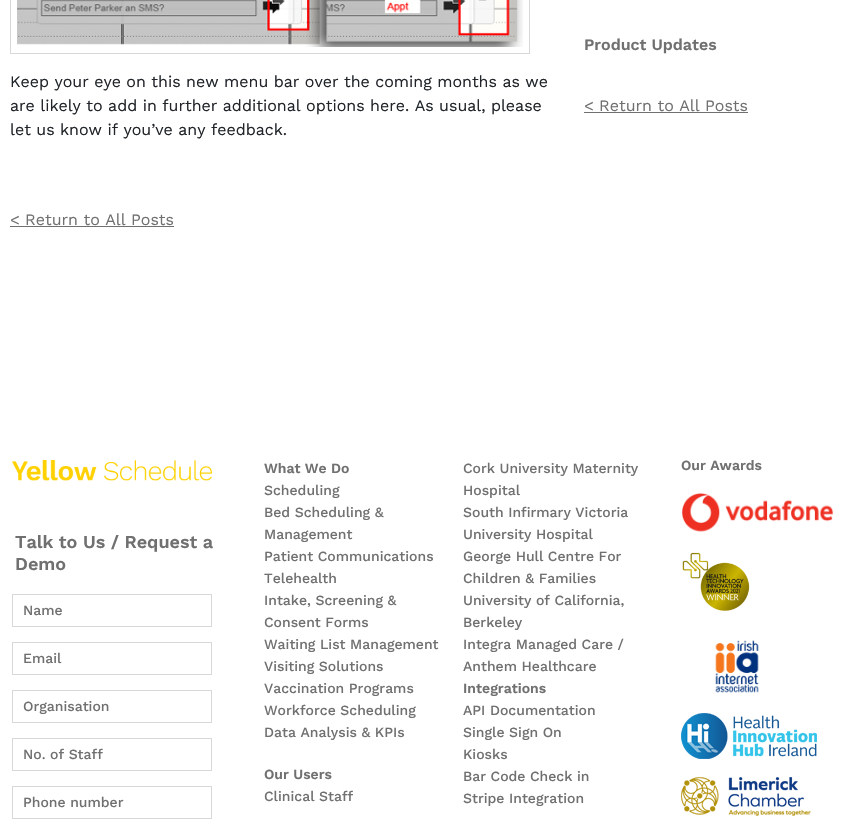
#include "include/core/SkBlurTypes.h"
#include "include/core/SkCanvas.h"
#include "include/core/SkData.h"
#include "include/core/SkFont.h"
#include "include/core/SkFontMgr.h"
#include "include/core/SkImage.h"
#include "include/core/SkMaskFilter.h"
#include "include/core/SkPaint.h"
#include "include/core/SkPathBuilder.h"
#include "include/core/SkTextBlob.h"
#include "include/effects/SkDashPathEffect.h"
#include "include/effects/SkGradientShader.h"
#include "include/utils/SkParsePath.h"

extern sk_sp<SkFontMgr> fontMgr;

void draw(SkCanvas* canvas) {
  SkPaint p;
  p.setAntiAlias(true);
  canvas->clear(SK_ColorWHITE);
  p.setStyle(SkPaint::kStroke_Style);
  p.setStrokeWidth(1);
  p.setColor(SkColorSetRGB(217, 216, 216));
  canvas->drawRect(SkRect::MakeLTRB(10.5f, -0.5f, 529.5f, 53.5f), p);
  canvas->drawImageRect(SkImages::DeferredFromEncodedData(SkData::MakeFromFileName("images/1.png")), SkRect::MakeLTRB(17, 0, 523, 47), SkSamplingOptions());
  p.setStyle(SkPaint::kFill_Style);
  p.setColor(SkColorSetRGB(112, 112, 112));
  canvas->drawRect(SkRect::MakeLTRB(10, 226, 174, 227), p);
  canvas->drawRect(SkRect::MakeLTRB(584, 112, 748, 113), p);
  canvas->drawImageRect(SkImages::DeferredFromEncodedData(SkData::MakeFromFileName("images/2.png")), SkRect::MakeLTRB(12, 460, 212, 481), SkSamplingOptions());
  p.setStyle(SkPaint::kStroke_Style);
  p.setColor(SkColorSetRGB(217, 216, 216));
  canvas->drawRect(SkRect::MakeLTRB(12.5f, 594.5f, 211.5f, 626.5f), p);
  canvas->drawRect(SkRect::MakeLTRB(12.5f, 642.5f, 211.5f, 674.5f), p);
  canvas->drawRect(SkRect::MakeLTRB(12.5f, 690.5f, 211.5f, 722.5f), p);
  canvas->drawRect(SkRect::MakeLTRB(12.5f, 738.5f, 211.5f, 770.5f), p);
  canvas->drawRect(SkRect::MakeLTRB(12.5f, 786.5f, 211.5f, 818.5f), p);
  canvas->drawImageRect(SkImages::DeferredFromEncodedData(SkData::MakeFromFileName("images/3.png")), SkRect::MakeLTRB(682, 493, 834, 532), SkSamplingOptions());
  canvas->drawImageRect(SkImages::DeferredFromEncodedData(SkData::MakeFromFileName("images/4.png")), SkRect::MakeLTRB(682, 552, 750, 611), SkSamplingOptions());
  canvas->drawImageRect(SkImages::DeferredFromEncodedData(SkData::MakeFromFileName("images/5.png")), SkRect::MakeLTRB(715, 640, 759, 693), SkSamplingOptions());
  canvas->drawImageRect(SkImages::DeferredFromEncodedData(SkData::MakeFromFileName("images/6.png")), SkRect::MakeLTRB(681, 713, 817, 759), SkSamplingOptions());
  canvas->drawImageRect(SkImages::DeferredFromEncodedData(SkData::MakeFromFileName("images/7.png")), SkRect::MakeLTRB(681, 777, 811, 816), SkSamplingOptions());
  SkFont font1(fontMgr->matchFamilyStyle("Work Sans", SkFontStyle::Normal()), 16);
  font1.setSubpixel(true);
  p.setStyle(SkPaint::kFill_Style);
  p.setColor(SkColorSetRGB(33, 37, 41));
  canvas->drawString("Keep your eye on this new menu bar over the coming months as we", 10, 87, font1, p);
  canvas->drawString("are likely to add in further additional options here. As usual, please", 10, 111, font1, p);
  canvas->drawString("let us know if you’ve any feedback.", 10, 135, font1, p);
  p.setColor(SkColorSetRGB(112, 112, 112));
  canvas->drawString("< Return to All Posts", 10, 225, font1, p);
  SkFont font2(fontMgr->matchFamilyStyle("Work Sans", SkFontStyle(600, SkFontStyle::kNormal_Width, SkFontStyle::kUpright_Slant)), 16);
  font2.setSubpixel(true);
  canvas->drawString("Product Updates", 584, 50, font2, p);
  canvas->drawString("< Return to All Posts", 584, 111, font1, p);
  SkFont font3(fontMgr->matchFamilyStyle("Work Sans", SkFontStyle(600, SkFontStyle::kNormal_Width, SkFontStyle::kUpright_Slant)), 18);
  font3.setSubpixel(true);
  canvas->drawString("Talk to Us / Request a", 15, 548, font3, p);
  canvas->drawString("Demo", 15, 570, font3, p);
  SkFont font4(fontMgr->matchFamilyStyle("Work Sans", SkFontStyle(500, SkFontStyle::kNormal_Width, SkFontStyle::kUpright_Slant)), 14);
  font4.setSubpixel(true);
  canvas->drawString("Name", 23, 615, font4, p);
  canvas->drawString("Email", 23, 663, font4, p);
  canvas->drawString("Organisation", 23, 711, font4, p);
  canvas->drawString("No. of Staff", 23, 759, font4, p);
  canvas->drawString("Phone number", 23, 807, font4, p);
  SkFont font5(fontMgr->matchFamilyStyle("Work Sans", SkFontStyle(600, SkFontStyle::kNormal_Width, SkFontStyle::kUpright_Slant)), 14);
  font5.setSubpixel(true);
  canvas->drawString("What We Do", 264, 473, font5, p);
  canvas->drawString("Cork University Maternity", 463, 473, font4, p);
  canvas->drawString("Hospital", 463, 495, font4, p);
  canvas->drawString("Scheduling", 264, 495, font4, p);
  canvas->drawString("Bed Scheduling &", 264, 517, font4, p);
  canvas->drawString("Management", 264, 539, font4, p);
  canvas->drawString("South Infirmary Victoria", 463, 517, font4, p);
  canvas->drawString("University Hospital", 463, 539, font4, p);
  canvas->drawString("Patient Communications", 264, 561, font4, p);
  canvas->drawString("George Hull Centre For", 463, 561, font4, p);
  canvas->drawString("Children & Families", 463, 583, font4, p);
  canvas->drawString("Telehealth", 264, 583, font4, p);
  canvas->drawString("Intake, Screening &", 264, 605, font4, p);
  canvas->drawString("Consent Forms", 264, 627, font4, p);
  canvas->drawString("University of California,", 463, 605, font4, p);
  canvas->drawString("Berkeley", 463, 627, font4, p);
  canvas->drawString("Waiting List Management", 264, 649, font4, p);
  canvas->drawString("Integra Managed Care /", 463, 649, font4, p);
  canvas->drawString("Anthem Healthcare", 463, 671, font4, p);
  canvas->drawString("Visiting Solutions", 264, 671, font4, p);
  canvas->drawString("Vaccination Programs", 264, 693, font4, p);
  canvas->drawString("Integrations", 463, 693, font5, p);
  canvas->drawString("Workforce Scheduling", 264, 715, font4, p);
  canvas->drawString("API Documentation", 463, 715, font4, p);
  canvas->drawString("Data Analysis & KPIs", 264, 737, font4, p);
  canvas->drawString("Single Sign On", 463, 737, font4, p);
  canvas->drawString("Kiosks", 463, 759, font4, p);
  canvas->drawString("Our Users", 264, 779, font5, p);
  canvas->drawString("Bar Code Check in", 463, 781, font4, p);
  canvas->drawString("Clinical Staff", 264, 801, font4, p);
  canvas->drawString("Stripe Integration", 463, 803, font4, p);
  canvas->drawString("Our Awards", 681, 470, font5, p);
}
